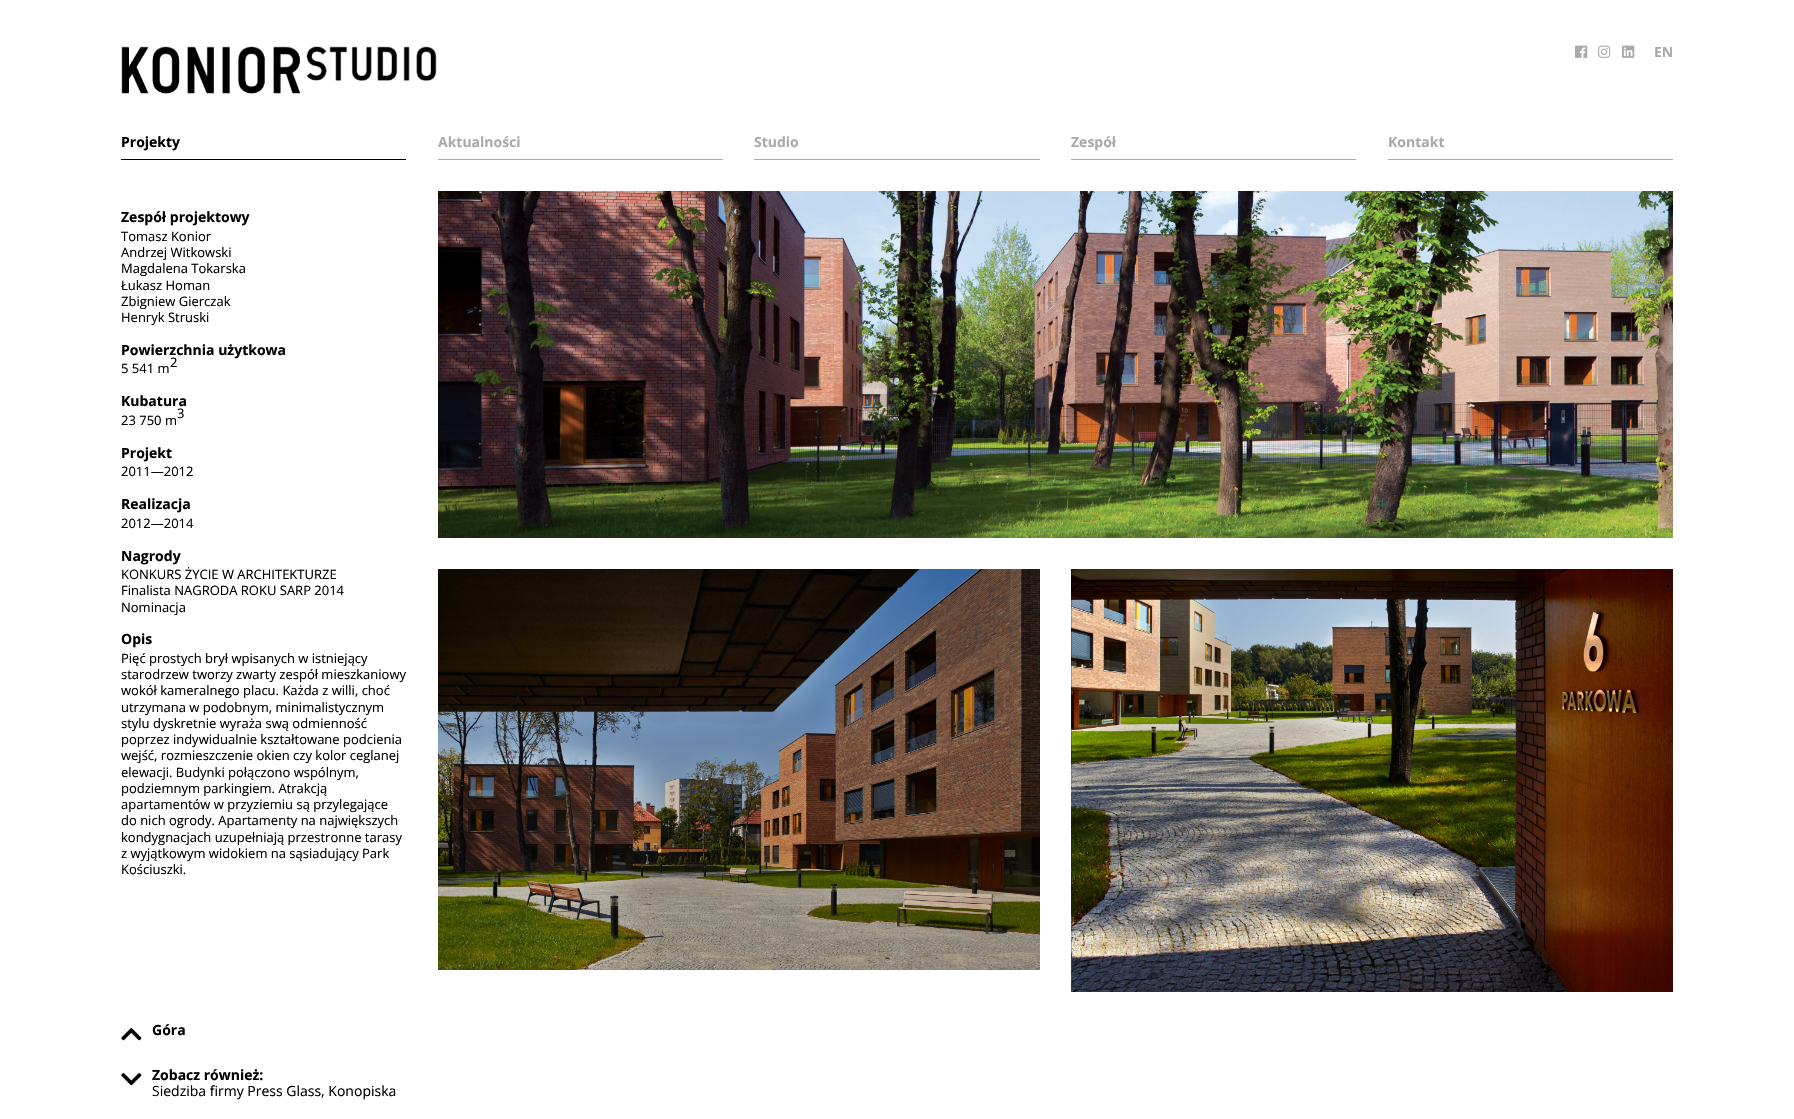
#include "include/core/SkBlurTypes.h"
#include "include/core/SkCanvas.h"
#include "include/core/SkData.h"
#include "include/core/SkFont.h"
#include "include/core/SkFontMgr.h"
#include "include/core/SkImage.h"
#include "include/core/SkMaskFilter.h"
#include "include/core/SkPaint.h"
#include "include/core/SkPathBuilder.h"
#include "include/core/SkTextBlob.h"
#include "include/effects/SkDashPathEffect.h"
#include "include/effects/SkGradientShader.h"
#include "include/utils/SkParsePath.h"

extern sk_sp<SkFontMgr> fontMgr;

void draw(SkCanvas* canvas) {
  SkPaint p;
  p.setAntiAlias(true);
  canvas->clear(SK_ColorWHITE);
  canvas->drawImageRect(SkImages::DeferredFromEncodedData(SkData::MakeFromFileName("images/1.png")), SkRect::MakeLTRB(121, 46, 437, 94), SkSamplingOptions());
  canvas->drawImageRect(SkImages::DeferredFromEncodedData(SkData::MakeFromFileName("images/2.png")), SkRect::MakeLTRB(1575, 45, 1588, 58), SkSamplingOptions());
  canvas->drawImageRect(SkImages::DeferredFromEncodedData(SkData::MakeFromFileName("images/3.png")), SkRect::MakeLTRB(1598, 45, 1611, 58), SkSamplingOptions());
  canvas->drawImageRect(SkImages::DeferredFromEncodedData(SkData::MakeFromFileName("images/4.png")), SkRect::MakeLTRB(1622, 45, 1635, 58), SkSamplingOptions());
  p.setColor(SK_ColorBLACK);
  canvas->drawRect(SkRect::MakeLTRB(121, 159, 406, 160), p);
  p.setColor(SkColorSetRGB(170, 170, 170));
  canvas->drawRect(SkRect::MakeLTRB(438, 159, 723, 160), p);
  canvas->drawRect(SkRect::MakeLTRB(754, 159, 1040, 160), p);
  canvas->drawRect(SkRect::MakeLTRB(1071, 159, 1356, 160), p);
  canvas->drawRect(SkRect::MakeLTRB(1388, 159, 1673, 160), p);
  canvas->drawImageRect(SkImages::DeferredFromEncodedData(SkData::MakeFromFileName("images/5.png")), SkRect::MakeLTRB(438, 191, 1673, 538), SkSamplingOptions());
  canvas->drawImageRect(SkImages::DeferredFromEncodedData(SkData::MakeFromFileName("images/6.png")), SkRect::MakeLTRB(438, 569, 1040, 970), SkSamplingOptions());
  canvas->drawImageRect(SkImages::DeferredFromEncodedData(SkData::MakeFromFileName("images/7.png")), SkRect::MakeLTRB(1071, 569, 1673, 992), SkSamplingOptions());
  canvas->drawImageRect(SkImages::DeferredFromEncodedData(SkData::MakeFromFileName("images/8.png")), SkRect::MakeLTRB(121, 1028, 142, 1041), SkSamplingOptions());
  canvas->drawImageRect(SkImages::DeferredFromEncodedData(SkData::MakeFromFileName("images/9.png")), SkRect::MakeLTRB(121, 1073, 142, 1086), SkSamplingOptions());
  SkFont font1(fontMgr->matchFamilyStyle("Open Sans", SkFontStyle::Bold()), 14);
  font1.setSubpixel(true);
  canvas->drawString("EN", 1654, 57, font1, p);
  p.setColor(SK_ColorBLACK);
  canvas->drawString("Projekty", 121, 147, font1, p);
  p.setColor(SkColorSetRGB(170, 170, 170));
  canvas->drawString("Aktualności", 438, 147, font1, p);
  canvas->drawString("Studio", 754, 147, font1, p);
  canvas->drawString("Zespół", 1071, 147, font1, p);
  canvas->drawString("Kontakt", 1388, 147, font1, p);
  p.setColor(SK_ColorBLACK);
  canvas->drawString("Zespół projektowy", 121, 222, font1, p);
  SkFont font2(fontMgr->matchFamilyStyle("Open Sans", SkFontStyle::Normal()), 13);
  font2.setSubpixel(true);
  canvas->drawString("Tomasz Konior", 121, 241, font2, p);
  canvas->drawString("Andrzej Witkowski", 121, 257, font2, p);
  canvas->drawString("Magdalena Tokarska", 121, 273, font2, p);
  canvas->drawString("Łukasz Homan", 121, 290, font2, p);
  canvas->drawString("Zbigniew Gierczak", 121, 306, font2, p);
  canvas->drawString("Henryk Struski", 121, 322, font2, p);
  canvas->drawString("Powierzchnia użytkowa", 121, 355, font1, p);
  canvas->drawString("2", 170, 367, font2, p);
  canvas->drawString("5 541 m", 121, 373, font2, p);
  canvas->drawString("Kubatura", 121, 406, font1, p);
  canvas->drawString("3", 177, 418, font2, p);
  canvas->drawString("23 750 m", 121, 425, font2, p);
  canvas->drawString("Projekt", 121, 458, font1, p);
  canvas->drawString("2011—2012", 121, 476, font2, p);
  canvas->drawString("Realizacja", 121, 509, font1, p);
  canvas->drawString("2012—2014", 121, 528, font2, p);
  canvas->drawString("Nagrody", 121, 561, font1, p);
  canvas->drawString("KONKURS ŻYCIE W ARCHITEKTURZE", 121, 579, font2, p);
  canvas->drawString("Finalista NAGRODA ROKU SARP 2014", 121, 595, font2, p);
  canvas->drawString("Nominacja", 121, 612, font2, p);
  canvas->drawString("Opis", 121, 644, font1, p);
  canvas->drawString("Pięć prostych brył wpisanych w istniejący", 121, 663, font2, p);
  canvas->drawString("starodrzew tworzy zwarty zespół mieszkaniowy", 121, 679, font2, p);
  canvas->drawString("wokół kameralnego placu. Każda z willi, choć", 121, 695, font2, p);
  canvas->drawString("utrzymana w podobnym, minimalistycznym", 121, 712, font2, p);
  canvas->drawString("stylu dyskretnie wyraża swą odmienność", 121, 728, font2, p);
  canvas->drawString("poprzez indywidualnie kształtowane podcienia", 121, 744, font2, p);
  canvas->drawString("wejść, rozmieszczenie okien czy kolor ceglanej", 121, 760, font2, p);
  canvas->drawString("elewacji. Budynki połączono wspólnym,", 121, 777, font2, p);
  canvas->drawString("podziemnym parkingiem. Atrakcją", 121, 793, font2, p);
  canvas->drawString("apartamentów w przyziemiu są przylegające", 121, 809, font2, p);
  canvas->drawString("do nich ogrody. Apartamenty na największych", 121, 825, font2, p);
  canvas->drawString("kondygnacjach uzupełniają przestronne tarasy", 121, 842, font2, p);
  canvas->drawString("z wyjątkowym widokiem na sąsiadujący Park", 121, 858, font2, p);
  canvas->drawString("Kościuszki.", 121, 874, font2, p);
  canvas->drawString("Góra", 152, 1035, font1, p);
  canvas->drawString("Zobacz również:", 152, 1080, font1, p);
  SkFont font3(fontMgr->matchFamilyStyle("Open Sans", SkFontStyle::Normal()), 14);
  font3.setSubpixel(true);
  canvas->drawString("Siedziba firmy Press Glass, Konopiska", 152, 1096, font3, p);
}
